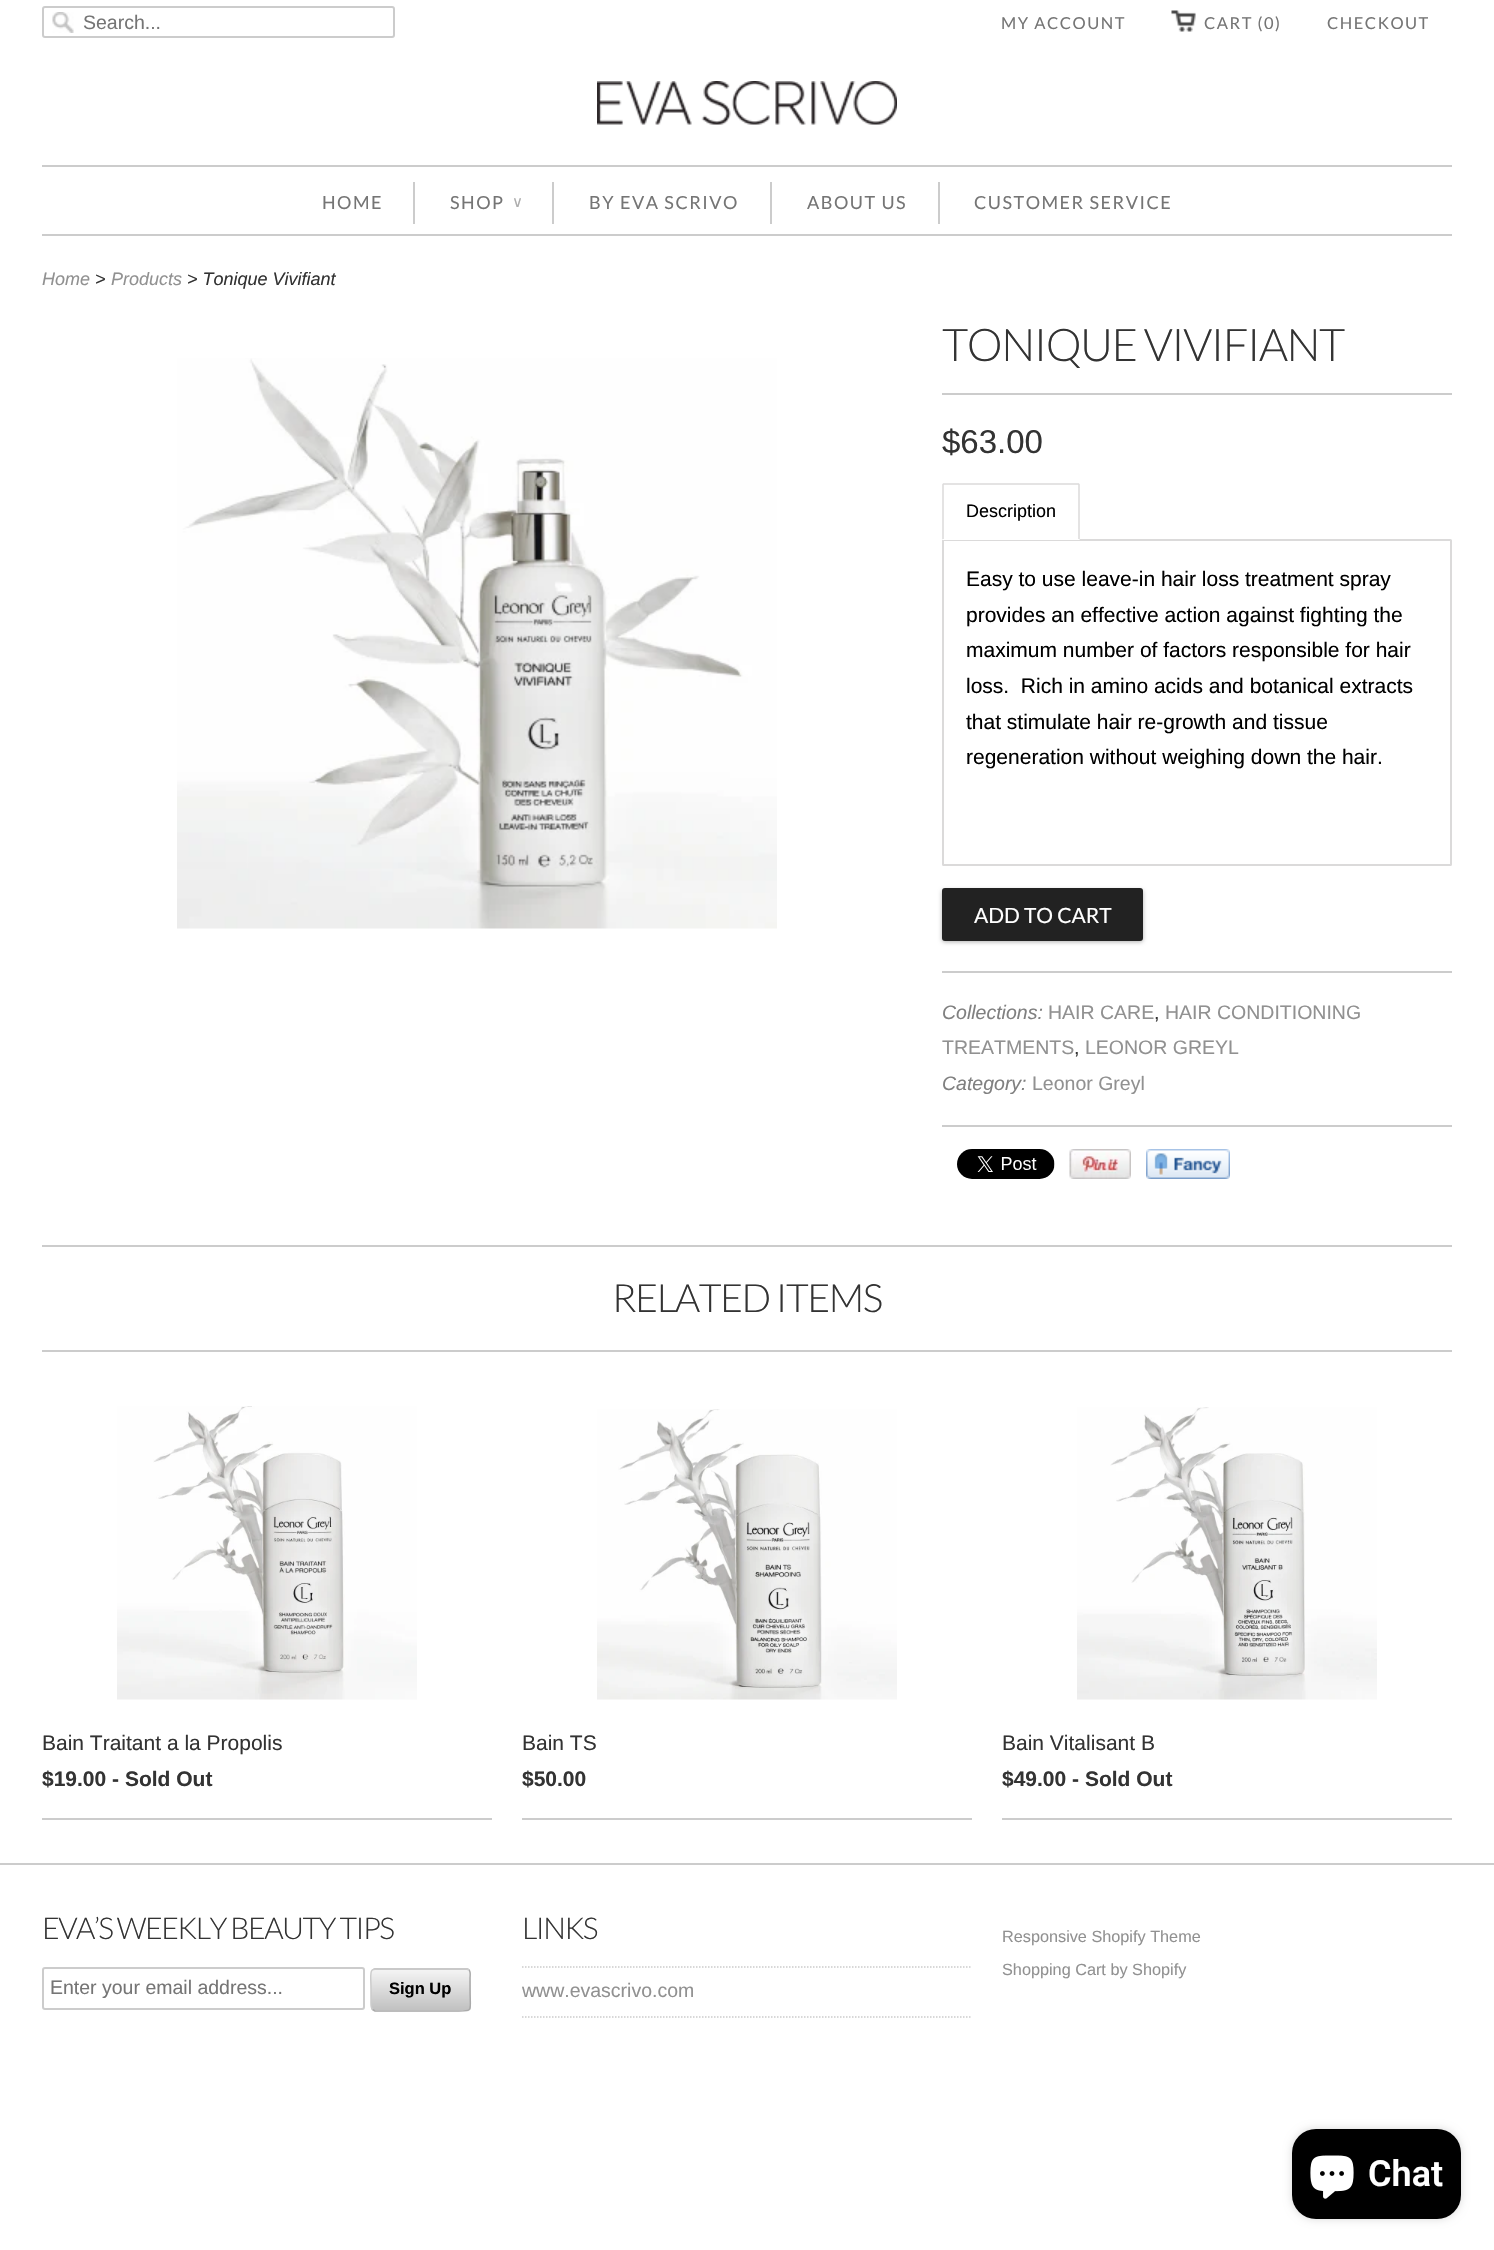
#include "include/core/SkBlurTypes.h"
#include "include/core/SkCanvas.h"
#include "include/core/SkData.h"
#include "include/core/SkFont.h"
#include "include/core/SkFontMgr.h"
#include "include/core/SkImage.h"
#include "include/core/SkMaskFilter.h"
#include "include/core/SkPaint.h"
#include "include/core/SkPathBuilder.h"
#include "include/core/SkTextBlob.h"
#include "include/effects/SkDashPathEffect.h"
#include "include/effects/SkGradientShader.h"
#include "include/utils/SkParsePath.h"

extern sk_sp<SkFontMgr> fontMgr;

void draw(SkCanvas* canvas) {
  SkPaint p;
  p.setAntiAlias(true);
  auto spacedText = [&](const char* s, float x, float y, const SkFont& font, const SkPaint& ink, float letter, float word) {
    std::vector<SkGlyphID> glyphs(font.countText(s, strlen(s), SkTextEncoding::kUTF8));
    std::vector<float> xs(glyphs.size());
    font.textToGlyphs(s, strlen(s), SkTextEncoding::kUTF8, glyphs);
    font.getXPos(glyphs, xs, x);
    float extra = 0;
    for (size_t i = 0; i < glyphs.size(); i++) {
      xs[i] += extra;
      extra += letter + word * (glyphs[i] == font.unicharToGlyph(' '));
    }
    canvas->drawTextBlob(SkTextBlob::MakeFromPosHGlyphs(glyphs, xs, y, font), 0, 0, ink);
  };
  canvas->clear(SK_ColorWHITE);
  canvas->drawImageRect(SkImages::DeferredFromEncodedData(SkData::MakeFromFileName("images/1.png")), SkRect::MakeLTRB(52, 12, 74, 33), SkSamplingOptions());
  p.setStyle(SkPaint::kStroke_Style);
  p.setStrokeWidth(2);
  p.setColor(SkColorSetRGB(204, 204, 204));
  canvas->drawRoundRect(SkRect::MakeLTRB(43, 7, 394, 37), 2, 2, p);
  canvas->drawImageRect(SkImages::DeferredFromEncodedData(SkData::MakeFromFileName("images/2.png")), SkRect::MakeLTRB(1171, 10, 1196, 32), SkSamplingOptions());
  canvas->drawImageRect(SkImages::DeferredFromEncodedData(SkData::MakeFromFileName("images/3.png")), SkRect::MakeLTRB(597, 81, 897, 125), SkSamplingOptions());
  p.setStyle(SkPaint::kFill_Style);
  canvas->drawRect(SkRect::MakeLTRB(42, 165, 1452, 167), p);
  canvas->drawRect(SkRect::MakeLTRB(42, 234, 1452, 236), p);
  canvas->drawRect(SkRect::MakeLTRB(413, 182, 415, 224), p);
  canvas->drawRect(SkRect::MakeLTRB(552, 182, 554, 224), p);
  canvas->drawRect(SkRect::MakeLTRB(770, 182, 772, 224), p);
  canvas->drawRect(SkRect::MakeLTRB(938, 182, 940, 224), p);
  canvas->drawImageRect(SkImages::DeferredFromEncodedData(SkData::MakeFromFileName("images/4.png")), SkRect::MakeLTRB(177, 358, 777, 929), SkSamplingOptions());
  canvas->drawRect(SkRect::MakeLTRB(942, 393, 1452, 395), p);
  p.setStyle(SkPaint::kStroke_Style);
  p.setColor(SkColorSetRGB(219, 218, 218));
  canvas->drawRoundRect(SkRect::MakeLTRB(943, 540, 1451, 865), 0.5f, 0.5f, p);
  p.setStyle(SkPaint::kFill_Style);
  p.setColor(SK_ColorWHITE);
  canvas->drawRoundRect(SkRect::MakeLTRB(942, 483, 1080, 540), 1.5f, 1.5f, p);
  p.setStyle(SkPaint::kStroke_Style);
  p.setStrokeWidth(1.5f);
  p.setColor(SkColorSetRGB(219, 218, 218));
  canvas->drawPath(SkPathBuilder().moveTo(943, 539).lineTo(943, 484.5f).lineTo(943.5f, 484).lineTo(1078.5f, 484).lineTo(1079, 484.5f).lineTo(1079, 539).detach(), p);
  p.setStyle(SkPaint::kFill_Style);
  p.setColor(SkColorSetARGB(77, 0, 0, 0));
  p.setMaskFilter(SkMaskFilter::MakeBlur(kNormal_SkBlurStyle, 2));
  canvas->drawRoundRect(SkRect::MakeLTRB(942, 890, 1143, 942), 3, 3, p);
  p.setMaskFilter(nullptr);
  p.setColor(SkColorSetRGB(34, 34, 34));
  canvas->drawRoundRect(SkRect::MakeLTRB(942, 888, 1143, 941), 3, 3, p);
  p.setColor(SkColorSetRGB(204, 204, 204));
  canvas->drawRect(SkRect::MakeLTRB(942, 971, 1452, 973), p);
  canvas->drawRect(SkRect::MakeLTRB(942, 1125, 1452, 1127), p);
  canvas->drawImageRect(SkImages::DeferredFromEncodedData(SkData::MakeFromFileName("images/5.png")), SkRect::MakeLTRB(957, 1149, 1055, 1179), SkSamplingOptions());
  canvas->drawImageRect(SkImages::DeferredFromEncodedData(SkData::MakeFromFileName("images/6.png")), SkRect::MakeLTRB(1069, 1149, 1131, 1179), SkSamplingOptions());
  canvas->drawImageRect(SkImages::DeferredFromEncodedData(SkData::MakeFromFileName("images/7.png")), SkRect::MakeLTRB(1146, 1149, 1230, 1179), SkSamplingOptions());
  canvas->drawRect(SkRect::MakeLTRB(42, 1245, 1452, 1247), p);
  canvas->drawRect(SkRect::MakeLTRB(42, 1350, 1452, 1352), p);
  canvas->drawRect(SkRect::MakeLTRB(42, 1818, 492, 1820), p);
  canvas->drawImageRect(SkImages::DeferredFromEncodedData(SkData::MakeFromFileName("images/8.png")), SkRect::MakeLTRB(117, 1406, 417, 1700), SkSamplingOptions());
  canvas->drawRect(SkRect::MakeLTRB(522, 1818, 972, 1820), p);
  canvas->drawImageRect(SkImages::DeferredFromEncodedData(SkData::MakeFromFileName("images/9.png")), SkRect::MakeLTRB(597, 1409, 897, 1700), SkSamplingOptions());
  canvas->drawRect(SkRect::MakeLTRB(1002, 1818, 1452, 1820), p);
  canvas->drawImageRect(SkImages::DeferredFromEncodedData(SkData::MakeFromFileName("images/10.png")), SkRect::MakeLTRB(1077, 1407, 1377, 1700), SkSamplingOptions());
  canvas->drawRect(SkRect::MakeLTRB(0, 1863, 1494, 1865), p);
  p.setStyle(SkPaint::kStroke_Style);
  p.setStrokeWidth(2);
  canvas->drawRoundRect(SkRect::MakeLTRB(43, 1968, 364, 2009), 2, 2, p);
  p.setStyle(SkPaint::kFill_Style);
  p.setColor(SkColorSetRGB(242, 242, 242));
  canvas->drawRoundRect(SkRect::MakeLTRB(371, 1968, 471, 2012), 5, 5, p);
  canvas->save();
  canvas->clipPath(SkPathBuilder().moveTo(376, 1968).lineTo(466, 1968).cubicTo(469, 1968, 471, 1970, 471, 1973).lineTo(471, 2007).cubicTo(471, 2010, 469, 2012, 466, 2012).lineTo(376, 2012).cubicTo(373, 2012, 371, 2010, 371, 2007).lineTo(371, 1973).cubicTo(371, 1970, 373, 1968, 376, 1968).close().detach(), true);
  {
    const SkColor colors[] = {SkColorSetARGB(51, 255, 255, 255), SkColorSetARGB(51, 0, 0, 0)};
    const float stops[] = {0, 1};
    const SkPoint ends[] = {{421, 1929}, {421, 1970}};
    p.setShader(SkGradientShader::MakeLinear(ends, colors, stops, 2, SkTileMode::kClamp));
    p.setAlpha(255);
  }
  canvas->drawRect(SkRect::MakeLTRB(371, 1968, 471, 1970), p);
  {
    const SkColor colors[] = {SkColorSetARGB(51, 255, 255, 255), SkColorSetARGB(51, 0, 0, 0)};
    const float stops[] = {0, 1};
    const SkPoint ends[] = {{421, 1970}, {421, 2010}};
    p.setShader(SkGradientShader::MakeLinear(ends, colors, stops, 2, SkTileMode::kClamp));
    p.setAlpha(255);
  }
  canvas->drawRect(SkRect::MakeLTRB(371, 1970, 471, 2010), p);
  canvas->restore();
  p.setStyle(SkPaint::kStroke_Style);
  p.setStrokeWidth(1.5f);
  p.setShader(nullptr);
  p.setColor(SkColorSetRGB(170, 170, 170));
  canvas->drawPath(SkPathBuilder().moveTo(469, 1970).cubicTo(471, 1972, 470, 1976.5f, 470, 1978).lineTo(470, 1990).cubicTo(470, 2013.5f, 475, 2011, 451, 2011).lineTo(375, 2011).lineTo(372.5f, 2009.5f).detach(), p);
  p.setColor(SkColorSetRGB(204, 204, 204));
  canvas->drawPath(SkPathBuilder().moveTo(372.5f, 2009.5f).cubicTo(370.5f, 2007.5f, 371, 2003, 371, 2001).lineTo(371, 1990).cubicTo(371, 1966, 366.5f, 1969, 390, 1969).lineTo(466.5f, 1969).lineTo(469, 1970).detach(), p);
  p.setPathEffect(SkDashPathEffect::Make({{1.5f, 1.5f}}, 0));
  canvas->drawPath(SkPathBuilder().moveTo(522, 1967).lineTo(972, 1967).detach(), p);
  p.setPathEffect(nullptr);
  p.setPathEffect(SkDashPathEffect::Make({{1.5f, 1.5f}}, 0));
  canvas->drawPath(SkPathBuilder().moveTo(522, 2017).lineTo(972, 2017).detach(), p);
  p.setPathEffect(nullptr);
  p.setStyle(SkPaint::kFill_Style);
  p.setColor(SkColorSetARGB(38, 0, 0, 0));
  p.setMaskFilter(SkMaskFilter::MakeBlur(kNormal_SkBlurStyle, 4));
  canvas->drawRoundRect(SkRect::MakeLTRB(1292, 2129, 1461, 2219), 24, 24, p);
  p.setMaskFilter(nullptr);
  p.setColor(SK_ColorBLACK);
  canvas->drawRoundRect(SkRect::MakeLTRB(1292, 2129, 1461, 2219), 24, 24, p);
  canvas->drawImageRect(SkImages::DeferredFromEncodedData(SkData::MakeFromFileName("images/11.png")), SkRect::MakeLTRB(1310, 2155, 1354, 2199), SkSamplingOptions());
  SkFont font1(fontMgr->matchFamilyStyle("Liberation Sans", SkFontStyle::Normal()), 19.5f);
  font1.setSubpixel(true);
  p.setColor(SkColorSetRGB(117, 117, 117));
  canvas->drawString("Search...", 83, 29, font1, p);
  SkFont font2(fontMgr->matchFamilyStyle("Lato", SkFontStyle::Normal()), 16.5f);
  font2.setSubpixel(true);
  spacedText("MY ACCOUNT", 1001, 29, font2, p, 1.5f, 0);
  spacedText("CART (0)", 1204, 29, font2, p, 1.5f, 0);
  spacedText("CHECKOUT", 1327, 29, font2, p, 1.5f, 0);
  SkFont font3(fontMgr->matchFamilyStyle("Lato", SkFontStyle::Normal()), 18);
  font3.setSubpixel(true);
  spacedText("HOME", 322, 209, font3, p, 1.5f, 0);
  spacedText("SHOP", 450, 209, font3, p, 1.5f, 0);
  SkFont font4(fontMgr->matchFamilyStyle("DejaVu Sans", SkFontStyle::Normal()), 15);
  font4.setSubpixel(true);
  p.setColor(SkColorSetRGB(173, 173, 173));
  spacedText("∨", 512, 207, font4, p, 1.5f, 0);
  p.setColor(SkColorSetRGB(117, 117, 117));
  spacedText("BY EVA SCRIVO", 589, 209, font3, p, 1.5f, 0);
  spacedText("ABOUT US", 807, 209, font3, p, 1.5f, 0);
  spacedText("CUSTOMER SERVICE", 974, 209, font3, p, 1.5f, 0);
  SkFont font5(fontMgr->matchFamilyStyle("Liberation Sans", SkFontStyle::Italic()), 18);
  font5.setSubpixel(true);
  p.setColor(SkColorSetRGB(145, 145, 145));
  canvas->drawString("Home", 42, 285, font5, p);
  p.setColor(SkColorSetRGB(51, 51, 51));
  canvas->drawString(">", 95, 285, font5, p);
  p.setColor(SkColorSetRGB(145, 145, 145));
  canvas->drawString("Products", 111, 285, font5, p);
  p.setColor(SkColorSetRGB(51, 51, 51));
  canvas->drawString("> Tonique Vivifiant", 187, 285, font5, p);
  SkFont font6(fontMgr->matchFamilyStyle("Lato", SkFontStyle(300, SkFontStyle::kNormal_Width, SkFontStyle::kUpright_Slant)), 45);
  font6.setSubpixel(true);
  spacedText("TONIQUE VIVIFIANT", 942, 361, font6, p, -1.5f, 0);
  SkFont font7(fontMgr->matchFamilyStyle("Liberation Sans", SkFontStyle::Normal()), 33);
  font7.setSubpixel(true);
  canvas->drawString("$63.00", 942, 453, font7, p);
  SkFont font8(fontMgr->matchFamilyStyle("Liberation Sans", SkFontStyle::Normal()), 18);
  font8.setSubpixel(true);
  p.setColor(SK_ColorBLACK);
  canvas->drawString("Description", 966, 517, font8, p);
  SkFont font9(fontMgr->matchFamilyStyle("Liberation Sans", SkFontStyle::Normal()), 21);
  font9.setSubpixel(true);
  canvas->drawString("Easy to use leave-in hair loss treatment spray", 966, 586, font9, p);
  canvas->drawString("provides an effective action against fighting the", 966, 622, font9, p);
  canvas->drawString("maximum number of factors responsible for hair", 966, 657, font9, p);
  canvas->drawString("loss.  Rich in amino acids and botanical extracts", 966, 693, font9, p);
  canvas->drawString("that stimulate hair re-growth and tissue", 966, 729, font9, p);
  canvas->drawString("regeneration without weighing down the hair.", 966, 764, font9, p);
  SkFont font10(fontMgr->matchFamilyStyle("Lato", SkFontStyle::Normal()), 21);
  font10.setSubpixel(true);
  p.setColor(SK_ColorWHITE);
  canvas->drawString("ADD TO CART", 974, 923, font10, p);
  SkFont font11(fontMgr->matchFamilyStyle("Liberation Sans", SkFontStyle::Italic()), 19.5f);
  font11.setSubpixel(true);
  p.setColor(SkColorSetRGB(128, 128, 128));
  canvas->drawString("Collections:", 942, 1019, font11, p);
  p.setColor(SkColorSetRGB(145, 145, 145));
  canvas->drawString("HAIR CARE", 1048, 1019, font1, p);
  p.setColor(SkColorSetRGB(51, 51, 51));
  canvas->drawString(",", 1154, 1019, font1, p);
  p.setColor(SkColorSetRGB(145, 145, 145));
  canvas->drawString("HAIR CONDITIONING", 1165, 1019, font1, p);
  canvas->drawString("TREATMENTS", 942, 1054, font1, p);
  p.setColor(SkColorSetRGB(51, 51, 51));
  canvas->drawString(",", 1074, 1054, font1, p);
  p.setColor(SkColorSetRGB(145, 145, 145));
  canvas->drawString("LEONOR GREYL", 1085, 1054, font1, p);
  p.setColor(SkColorSetRGB(128, 128, 128));
  canvas->drawString("Category:", 942, 1090, font11, p);
  p.setColor(SkColorSetRGB(145, 145, 145));
  canvas->drawString("Leonor Greyl", 1032, 1090, font1, p);
  SkFont font12(fontMgr->matchFamilyStyle("Lato", SkFontStyle(300, SkFontStyle::kNormal_Width, SkFontStyle::kUpright_Slant)), 39);
  font12.setSubpixel(true);
  p.setColor(SkColorSetRGB(51, 51, 51));
  spacedText("RELATED ITEMS", 612, 1312, font12, p, -1.5f, 0);
  canvas->drawString("Bain Traitant a la Propolis", 42, 1750, font9, p);
  SkFont font13(fontMgr->matchFamilyStyle("Liberation Sans", SkFontStyle::Bold()), 21);
  font13.setSubpixel(true);
  canvas->drawString("$19.00 - Sold Out", 42, 1786, font13, p);
  canvas->drawString("Bain TS", 522, 1750, font9, p);
  canvas->drawString("$50.00", 522, 1786, font13, p);
  canvas->drawString("Bain Vitalisant B", 1002, 1750, font9, p);
  canvas->drawString("$49.00 - Sold Out", 1002, 1786, font13, p);
  SkFont font14(fontMgr->matchFamilyStyle("Lato", SkFontStyle(300, SkFontStyle::kNormal_Width, SkFontStyle::kUpright_Slant)), 30);
  font14.setSubpixel(true);
  spacedText("EVA’S WEEKLY BEAUTY TIPS", 42, 1939, font14, p, -1.5f, 0);
  p.setColor(SkColorSetRGB(117, 117, 117));
  canvas->drawString("Enter your email address...", 50, 1994, font1, p);
  SkFont font15(fontMgr->matchFamilyStyle("Liberation Sans", SkFontStyle::Bold()), 16.5f);
  font15.setSubpixel(true);
  p.setColor(SK_ColorBLACK);
  canvas->drawString("Sign Up", 389, 1994, font15, p);
  p.setColor(SkColorSetRGB(51, 51, 51));
  spacedText("LINKS", 522, 1939, font14, p, -1.5f, 0);
  p.setColor(SkColorSetRGB(145, 145, 145));
  canvas->drawString("www.evascrivo.com", 522, 1997, font1, p);
  SkFont font16(fontMgr->matchFamilyStyle("Liberation Sans", SkFontStyle::Normal()), 16.25f);
  font16.setSubpixel(true);
  canvas->drawString("Responsive Shopify Theme", 1002, 1942, font16, p);
  canvas->drawString("Shopping Cart by Shopify", 1002, 1975, font16, p);
  SkFont font17(fontMgr->matchFamilyStyle("Roboto", SkFontStyle(600, SkFontStyle::kNormal_Width, SkFontStyle::kUpright_Slant)), 36);
  font17.setSubpixel(true);
  p.setColor(SK_ColorWHITE);
  canvas->drawString("Chat", 1368, 2186, font17, p);
}
